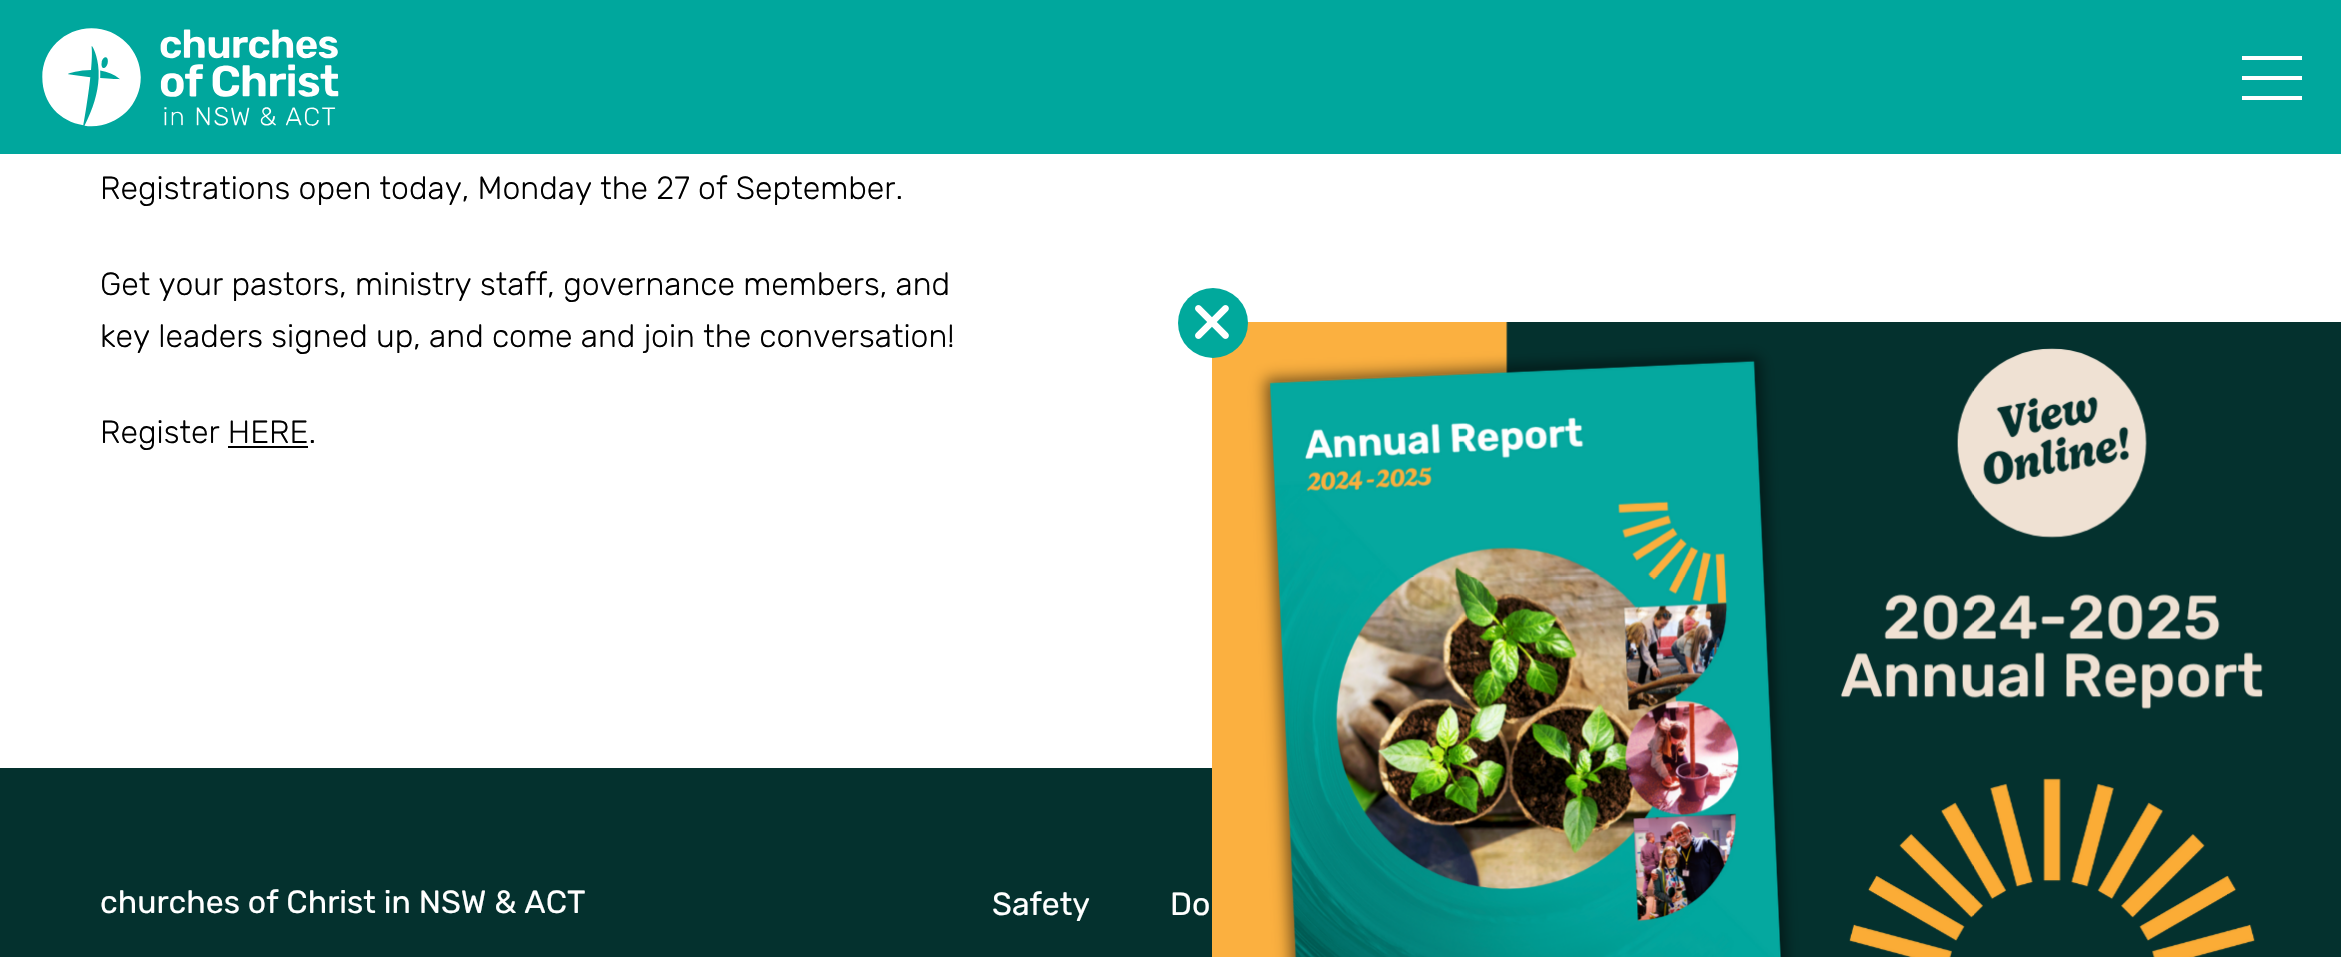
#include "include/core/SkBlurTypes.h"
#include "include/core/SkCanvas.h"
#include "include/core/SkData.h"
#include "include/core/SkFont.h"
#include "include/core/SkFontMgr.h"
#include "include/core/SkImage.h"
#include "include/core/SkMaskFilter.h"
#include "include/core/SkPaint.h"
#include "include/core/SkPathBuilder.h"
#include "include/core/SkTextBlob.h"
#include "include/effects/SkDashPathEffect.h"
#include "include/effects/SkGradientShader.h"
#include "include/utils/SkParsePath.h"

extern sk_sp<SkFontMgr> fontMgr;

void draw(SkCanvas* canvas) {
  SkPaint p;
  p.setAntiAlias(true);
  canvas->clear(SK_ColorWHITE);
  p.setColor(SkColorSetRGB(0, 167, 157));
  canvas->drawRect(SkRect::MakeLTRB(0, 0, 2341, 154), p);
  canvas->drawImageRect(SkImages::DeferredFromEncodedData(SkData::MakeFromFileName("images/1.png")), SkRect::MakeLTRB(42, 28, 339, 127), SkSamplingOptions());
  p.setColor(SK_ColorWHITE);
  canvas->drawRect(SkRect::MakeLTRB(2242, 56, 2302, 60), p);
  canvas->drawRect(SkRect::MakeLTRB(2242, 76, 2302, 80), p);
  canvas->drawRect(SkRect::MakeLTRB(2242, 96, 2302, 100), p);
  p.setColor(SK_ColorBLACK);
  canvas->drawRect(SkRect::MakeLTRB(228, 446, 308, 448), p);
  canvas->drawImageRect(SkImages::DeferredFromEncodedData(SkData::MakeFromFileName("images/3.png")), SkRect::MakeLTRB(1212, 322, 2341, 957), SkSamplingOptions());
  p.setColor(SkColorSetRGB(1, 169, 156));
  canvas->drawCircle(1213, 323, 35, p);
  canvas->drawImageRect(SkImages::DeferredFromEncodedData(SkData::MakeFromFileName("images/2.png")), SkRect::MakeLTRB(1195, 305, 1229, 339), SkSamplingOptions());
  p.setColor(SkColorSetRGB(4, 49, 46));
  canvas->drawRect(SkRect::MakeLTRB(0, 768, 1212, 957), p);
  SkFont font1(fontMgr->matchFamilyStyle("Rubik", SkFontStyle(300, SkFontStyle::kNormal_Width, SkFontStyle::kUpright_Slant)), 32);
  font1.setSubpixel(true);
  p.setColor(SK_ColorBLACK);
  canvas->drawString("Registrations open today, Monday the 27 of September.", 100, 199, font1, p);
  canvas->drawString("Get your pastors, ministry staff, governance members, and", 100, 295, font1, p);
  canvas->drawString("key leaders signed up, and come and join the conversation!", 100, 347, font1, p);
  canvas->drawString("Register HERE.", 100, 443, font1, p);
  SkFont font2(fontMgr->matchFamilyStyle("Rubik", SkFontStyle::Normal()), 32);
  font2.setSubpixel(true);
  p.setColor(SK_ColorWHITE);
  canvas->drawString("churches of Christ in NSW & ACT", 100, 913, font2, p);
  SkFont font3(fontMgr->matchFamilyStyle("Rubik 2", SkFontStyle::Normal()), 32);
  font3.setSubpixel(true);
  canvas->drawString("Safety", 992, 915, font3, p);
  canvas->drawString("Do", 1170, 915, font3, p);
}
